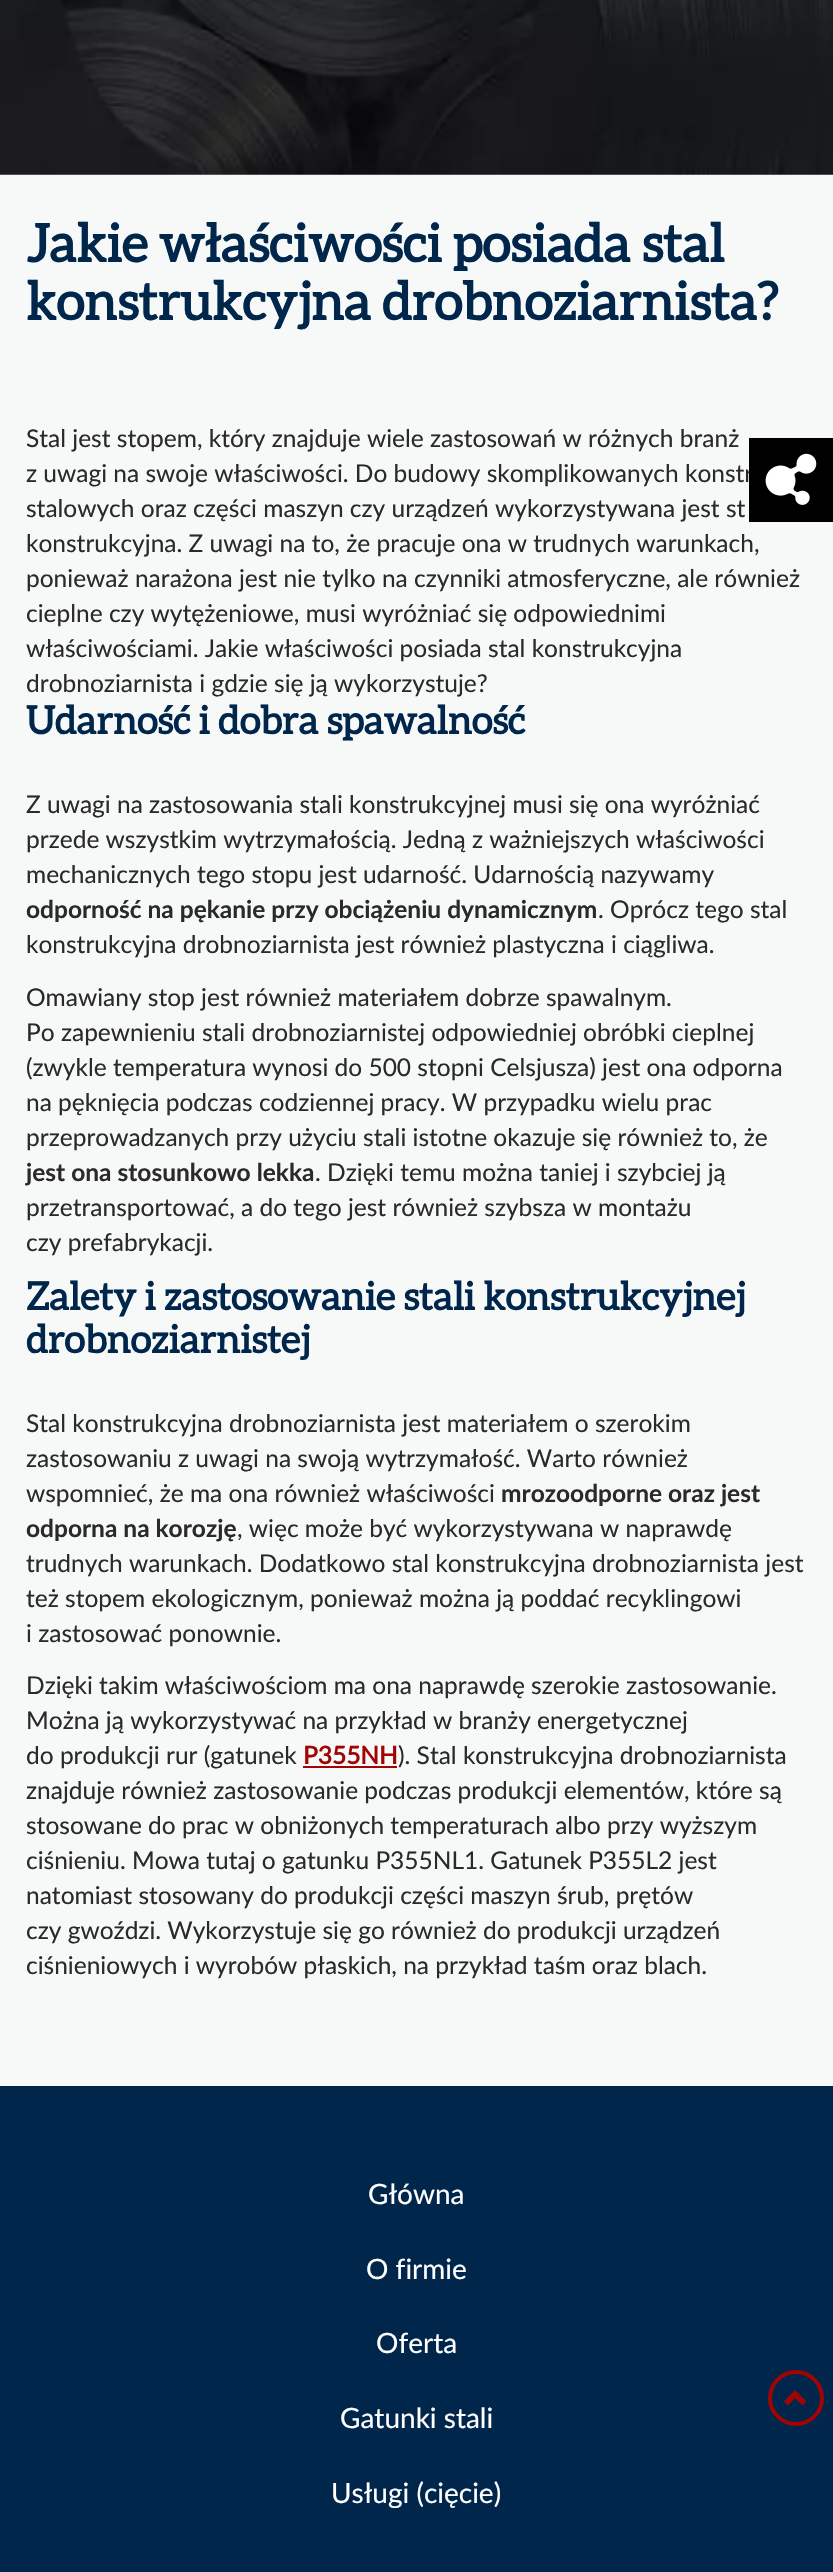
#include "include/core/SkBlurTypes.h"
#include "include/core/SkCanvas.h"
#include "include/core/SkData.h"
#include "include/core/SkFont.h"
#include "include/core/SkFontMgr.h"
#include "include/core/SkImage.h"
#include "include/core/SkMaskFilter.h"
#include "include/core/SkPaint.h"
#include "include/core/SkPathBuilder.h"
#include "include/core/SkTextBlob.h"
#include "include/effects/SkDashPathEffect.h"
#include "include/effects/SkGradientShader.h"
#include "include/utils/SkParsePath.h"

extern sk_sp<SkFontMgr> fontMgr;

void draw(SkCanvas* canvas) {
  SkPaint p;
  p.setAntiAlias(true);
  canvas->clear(SkColorSetRGB(247, 249, 249));
  canvas->drawImageRect(SkImages::DeferredFromEncodedData(SkData::MakeFromFileName("images/1.png")), SkRect::MakeLTRB(0, 0, 833, 175), SkSamplingOptions());
  p.setColor(SkColorSetRGB(162, 4, 4));
  canvas->drawRect(SkRect::MakeLTRB(303, 1766, 397, 1768), p);
  p.setColor(SkColorSetRGB(0, 38, 75));
  canvas->drawRect(SkRect::MakeLTRB(0, 2086, 833, 2572), p);
  p.setStyle(SkPaint::kStroke_Style);
  p.setStrokeWidth(4);
  p.setColor(SkColorSetRGB(162, 4, 4));
  canvas->drawCircle(796, 2398, 26, p);
  p.setStyle(SkPaint::kFill_Style);
  canvas->drawPath(SkPathBuilder().moveTo(806.5f, 2401.5f).lineTo(802.5f, 2405.5f).lineTo(795, 2398).lineTo(788, 2405.5f).lineTo(784, 2401.5f).lineTo(795, 2390).close().detach(), p);
  SkFont font1(fontMgr->matchFamilyStyle("Aleo", SkFontStyle::Bold()), 52.5f);
  font1.setSubpixel(true);
  p.setColor(SkColorSetRGB(0, 38, 75));
  canvas->drawString("Jakie właściwości posiada stal", 26, 262, font1, p);
  canvas->drawString("konstrukcyjna drobnoziarnista?", 26, 320, font1, p);
  SkFont font2(fontMgr->matchFamilyStyle("Lato", SkFontStyle::Normal()), 24.5f);
  font2.setSubpixel(true);
  p.setColor(SkColorSetRGB(42, 42, 42));
  canvas->drawString("Stal jest stopem, który znajduje wiele zastosowań w różnych branż", 26, 447, font2, p);
  canvas->drawString("z uwagi na swoje właściwości. Do budowy skomplikowanych konstr", 26, 482, font2, p);
  canvas->drawString("stalowych oraz części maszyn czy urządzeń wykorzystywana jest st", 26, 517, font2, p);
  canvas->drawString("konstrukcyjna. Z uwagi na to, że pracuje ona w trudnych warunkach,", 26, 552, font2, p);
  canvas->drawString("ponieważ narażona jest nie tylko na czynniki atmosferyczne, ale również", 26, 587, font2, p);
  canvas->drawString("cieplne czy wytężeniowe, musi wyróżniać się odpowiednimi", 26, 622, font2, p);
  canvas->drawString("właściwościami. Jakie właściwości posiada stal konstrukcyjna", 26, 657, font2, p);
  canvas->drawString("drobnoziarnista i gdzie się ją wykorzystuje?", 26, 692, font2, p);
  SkFont font3(fontMgr->matchFamilyStyle("Aleo", SkFontStyle::Bold()), 38.5f);
  font3.setSubpixel(true);
  p.setColor(SkColorSetRGB(0, 38, 75));
  canvas->drawString("Udarność i dobra spawalność", 26, 734, font3, p);
  p.setColor(SkColorSetRGB(42, 42, 42));
  canvas->drawString("Z uwagi na zastosowania stali konstrukcyjnej musi się ona wyróżniać", 26, 813, font2, p);
  canvas->drawString("przede wszystkim wytrzymałością. Jedną z ważniejszych właściwości", 26, 848, font2, p);
  canvas->drawString("mechanicznych tego stopu jest udarność. Udarnością nazywamy", 26, 883, font2, p);
  SkFont font4(fontMgr->matchFamilyStyle("Lato", SkFontStyle::Bold()), 24.5f);
  font4.setSubpixel(true);
  canvas->drawString("odporność na pękanie przy obciążeniu dynamicznym", 26, 918, font4, p);
  canvas->drawString(". Oprócz tego stal", 598, 918, font2, p);
  canvas->drawString("konstrukcyjna drobnoziarnista jest również plastyczna i ciągliwa.", 26, 953, font2, p);
  canvas->drawString("Omawiany stop jest również materiałem dobrze spawalnym.", 26, 1006, font2, p);
  canvas->drawString("Po zapewnieniu stali drobnoziarnistej odpowiedniej obróbki cieplnej", 26, 1041, font2, p);
  canvas->drawString("(zwykle temperatura wynosi do 500 stopni Celsjusza) jest ona odporna", 26, 1076, font2, p);
  canvas->drawString("na pęknięcia podczas codziennej pracy. W przypadku wielu prac", 26, 1111, font2, p);
  canvas->drawString("przeprowadzanych przy użyciu stali istotne okazuje się również to, że", 26, 1146, font2, p);
  canvas->drawString("jest ona stosunkowo lekka", 26, 1181, font4, p);
  canvas->drawString(". Dzięki temu można taniej i szybciej ją", 315, 1181, font2, p);
  canvas->drawString("przetransportować, a do tego jest również szybsza w montażu", 26, 1216, font2, p);
  canvas->drawString("czy prefabrykacji.", 26, 1251, font2, p);
  p.setColor(SkColorSetRGB(0, 38, 75));
  canvas->drawString("Zalety i zastosowanie stali konstrukcyjnej", 26, 1310, font3, p);
  canvas->drawString("drobnoziarnistej", 26, 1353, font3, p);
  p.setColor(SkColorSetRGB(42, 42, 42));
  canvas->drawString("Stal konstrukcyjna drobnoziarnista jest materiałem o szerokim", 26, 1432, font2, p);
  canvas->drawString("zastosowaniu z uwagi na swoją wytrzymałość. Warto również", 26, 1467, font2, p);
  canvas->drawString("wspomnieć, że ma ona również właściwości", 26, 1502, font2, p);
  canvas->drawString("mrozoodporne oraz jest", 501, 1502, font4, p);
  canvas->drawString("odporna na korozję", 26, 1537, font4, p);
  canvas->drawString(", więc może być wykorzystywana w naprawdę", 237, 1537, font2, p);
  canvas->drawString("trudnych warunkach. Dodatkowo stal konstrukcyjna drobnoziarnista jest", 26, 1572, font2, p);
  canvas->drawString("też stopem ekologicznym, ponieważ można ją poddać recyklingowi", 26, 1607, font2, p);
  canvas->drawString("i zastosować ponownie.", 26, 1642, font2, p);
  canvas->drawString("Dzięki takim właściwościom ma ona naprawdę szerokie zastosowanie.", 26, 1694, font2, p);
  canvas->drawString("Można ją wykorzystywać na przykład w branży energetycznej", 26, 1729, font2, p);
  canvas->drawString("do produkcji rur (gatunek", 26, 1764, font2, p);
  SkFont font5(fontMgr->matchFamilyStyle("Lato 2", SkFontStyle::Bold()), 24.5f);
  font5.setSubpixel(true);
  p.setColor(SkColorSetRGB(162, 4, 4));
  canvas->drawString("P355NH", 303, 1764, font5, p);
  p.setColor(SkColorSetRGB(42, 42, 42));
  canvas->drawString("). Stal konstrukcyjna drobnoziarnista", 398, 1764, font2, p);
  canvas->drawString("znajduje również zastosowanie podczas produkcji elementów, które są", 26, 1799, font2, p);
  canvas->drawString("stosowane do prac w obniżonych temperaturach albo przy wyższym", 26, 1834, font2, p);
  canvas->drawString("ciśnieniu. Mowa tutaj o gatunku P355NL1. Gatunek P355L2 jest", 26, 1869, font2, p);
  canvas->drawString("natomiast stosowany do produkcji części maszyn śrub, prętów", 26, 1904, font2, p);
  canvas->drawString("czy gwoździ. Wykorzystuje się go również do produkcji urządzeń", 26, 1939, font2, p);
  canvas->drawString("ciśnieniowych i wyrobów płaskich, na przykład taśm oraz blach.", 26, 1974, font2, p);
  p.setColor(SK_ColorBLACK);
  canvas->drawRect(SkRect::MakeLTRB(749, 438, 833, 522), p);
  canvas->drawImageRect(SkImages::DeferredFromEncodedData(SkData::MakeFromFileName("images/2.png")), SkRect::MakeLTRB(765, 453, 817, 505), SkSamplingOptions());
  SkFont font6(fontMgr->matchFamilyStyle("Lato", SkFontStyle::Normal()), 28);
  font6.setSubpixel(true);
  p.setColor(SK_ColorWHITE);
  canvas->drawString("Główna", 368, 2204, font6, p);
  canvas->drawString("O firmie", 366, 2279, font6, p);
  canvas->drawString("Oferta", 376, 2353, font6, p);
  canvas->drawString("Gatunki stali", 340, 2428, font6, p);
  canvas->drawString("Usługi (cięcie)", 331, 2503, font6, p);
}
